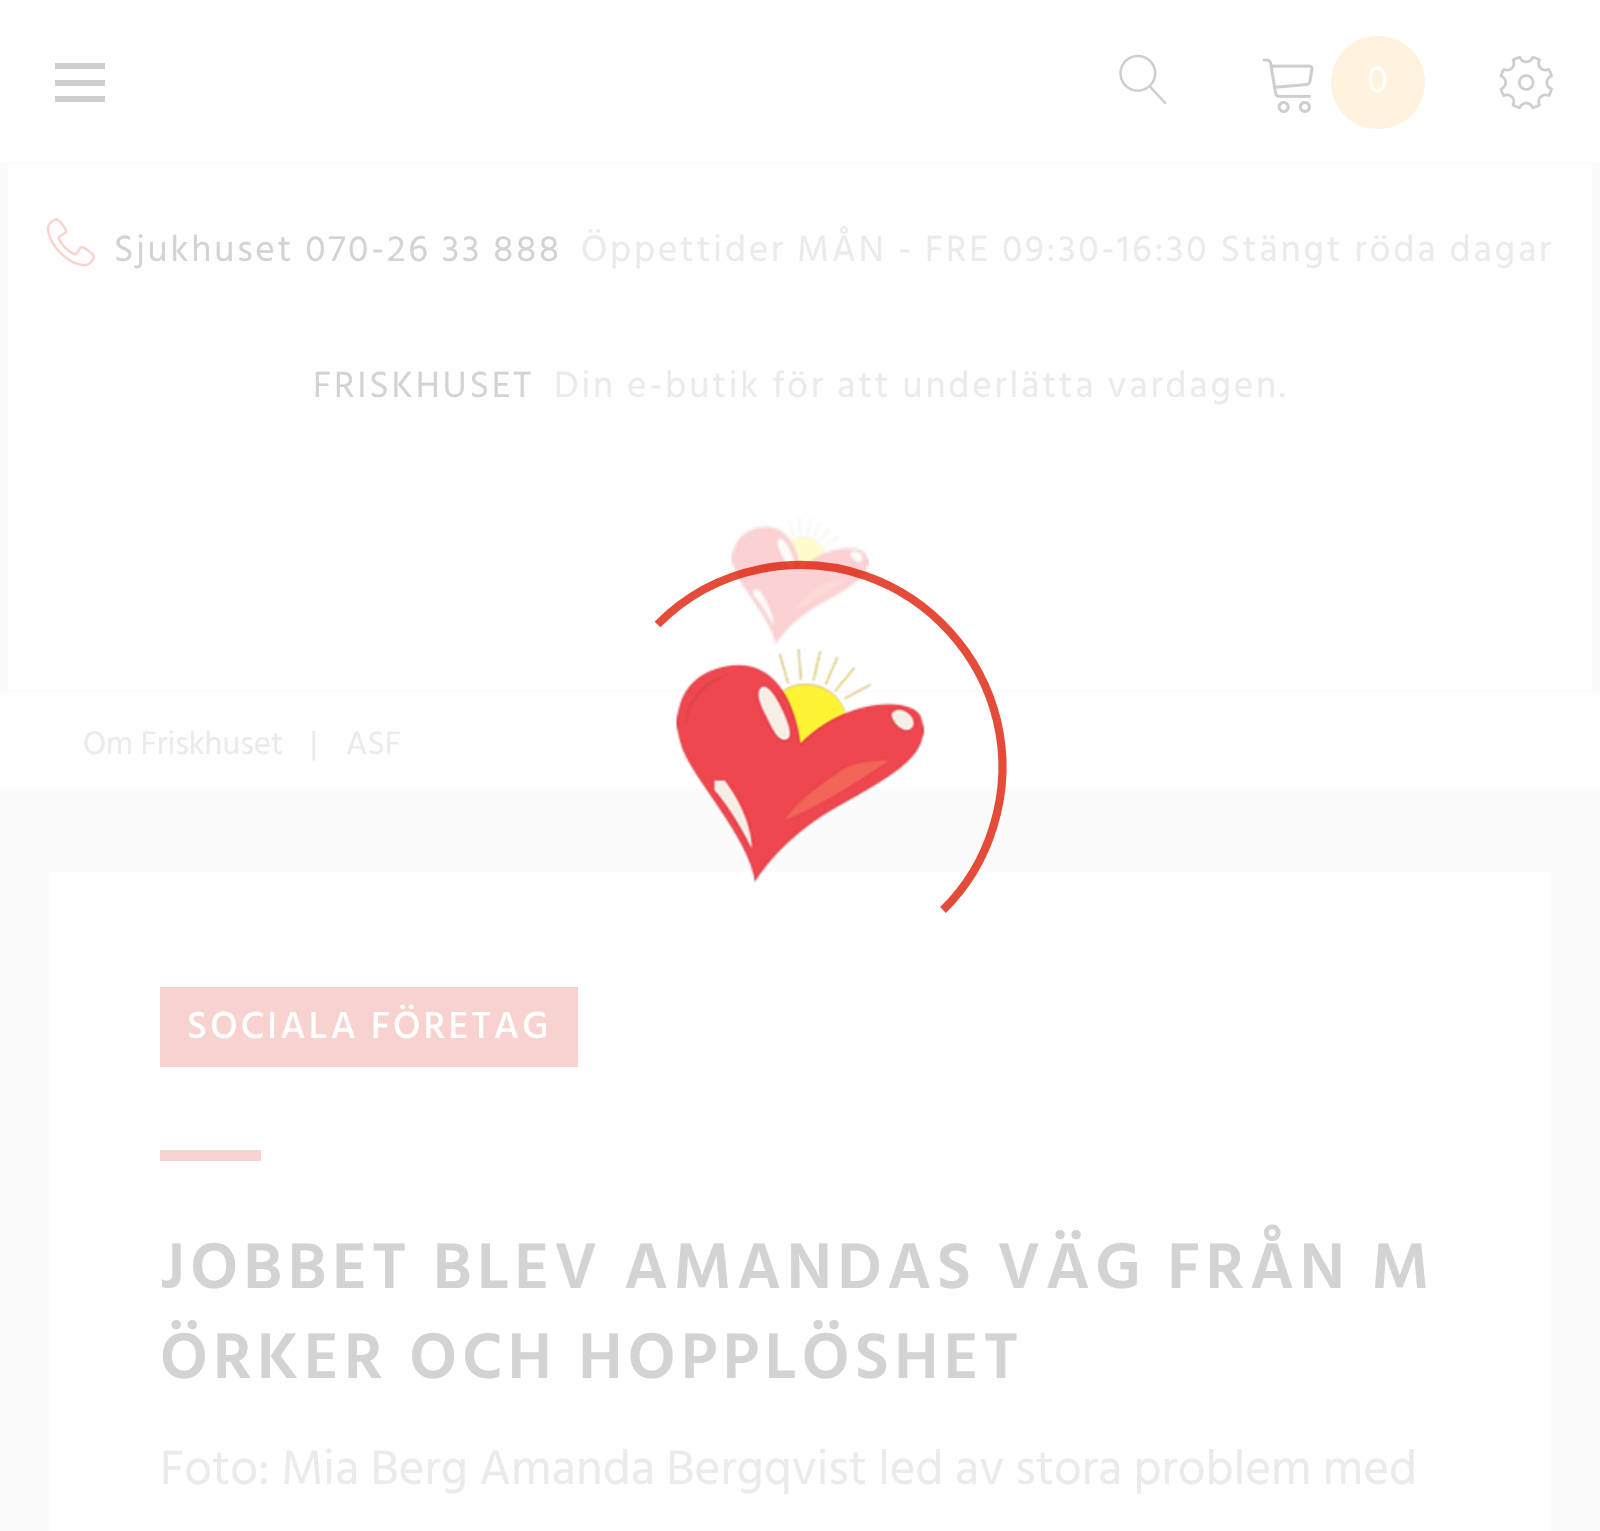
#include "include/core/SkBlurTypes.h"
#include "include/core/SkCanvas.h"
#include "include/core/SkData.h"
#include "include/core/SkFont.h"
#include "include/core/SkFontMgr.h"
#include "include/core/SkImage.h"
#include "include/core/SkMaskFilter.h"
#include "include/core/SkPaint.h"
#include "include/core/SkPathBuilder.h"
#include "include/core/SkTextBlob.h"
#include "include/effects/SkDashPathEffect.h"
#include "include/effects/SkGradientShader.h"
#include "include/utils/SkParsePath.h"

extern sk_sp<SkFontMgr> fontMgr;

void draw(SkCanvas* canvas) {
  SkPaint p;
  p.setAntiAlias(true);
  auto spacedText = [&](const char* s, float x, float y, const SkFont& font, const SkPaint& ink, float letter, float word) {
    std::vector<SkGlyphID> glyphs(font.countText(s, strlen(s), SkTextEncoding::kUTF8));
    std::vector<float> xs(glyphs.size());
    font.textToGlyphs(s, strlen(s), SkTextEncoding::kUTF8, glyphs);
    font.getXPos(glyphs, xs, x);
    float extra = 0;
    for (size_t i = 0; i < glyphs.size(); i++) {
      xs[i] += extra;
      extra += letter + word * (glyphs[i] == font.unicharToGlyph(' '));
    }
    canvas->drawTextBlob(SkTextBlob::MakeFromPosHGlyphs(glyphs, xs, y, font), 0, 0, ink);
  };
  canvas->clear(SkColorSetRGB(251, 251, 251));
  p.setColor(SK_ColorWHITE);
  canvas->drawRect(SkRect::MakeLTRB(0, 0, 1600, 162), p);
  p.setColor(SkColorSetRGB(206, 206, 206));
  canvas->drawRect(SkRect::MakeLTRB(55, 80, 105, 86), p);
  canvas->drawRect(SkRect::MakeLTRB(55, 63, 105, 69), p);
  canvas->drawRect(SkRect::MakeLTRB(55, 96, 105, 102), p);
  canvas->drawImageRect(SkImages::DeferredFromEncodedData(SkData::MakeFromFileName("images/1.png")), SkRect::MakeLTRB(1119, 54, 1167, 105), SkSamplingOptions());
  canvas->drawImageRect(SkImages::DeferredFromEncodedData(SkData::MakeFromFileName("images/2.png")), SkRect::MakeLTRB(1262, 58, 1314, 113), SkSamplingOptions());
  p.setColor(SkColorSetRGB(255, 243, 221));
  canvas->drawRoundRect(SkRect::MakeLTRB(1331, 36, 1425, 129), 46.5f, 46.5f, p);
  canvas->drawImageRect(SkImages::DeferredFromEncodedData(SkData::MakeFromFileName("images/3.png")), SkRect::MakeLTRB(1499, 55, 1553, 110), SkSamplingOptions());
  p.setColor(SkColorSetRGB(255, 254, 254));
  canvas->drawRect(SkRect::MakeLTRB(8, 165, 1592, 465), p);
  canvas->drawImageRect(SkImages::DeferredFromEncodedData(SkData::MakeFromFileName("images/4.png")), SkRect::MakeLTRB(46, 218, 96, 267), SkSamplingOptions());
  p.setColor(SK_ColorWHITE);
  canvas->drawRect(SkRect::MakeLTRB(8, 465, 1592, 690), p);
  canvas->drawImageRect(SkImages::DeferredFromEncodedData(SkData::MakeFromFileName("images/5.png")), SkRect::MakeLTRB(731, 517, 869, 646), SkSamplingOptions());
  p.setColor(SkColorSetRGB(255, 254, 254));
  canvas->drawRect(SkRect::MakeLTRB(0, 693, 1600, 789), p);
  p.setColor(SK_ColorWHITE);
  canvas->drawRect(SkRect::MakeLTRB(50, 872, 1551, 1531), p);
  p.setColor(SkColorSetRGB(248, 210, 206));
  canvas->drawRect(SkRect::MakeLTRB(160, 987, 578, 1067), p);
  canvas->drawRect(SkRect::MakeLTRB(160, 1150, 261, 1161), p);
  p.setStyle(SkPaint::kStroke_Style);
  p.setStrokeWidth(8.2f);
  p.setColor(SkColorSetARGB(204, 221, 30, 8));
  canvas->drawPath(SkPathBuilder().moveTo(657.5f, 624.5f).cubicTo(685.5f, 596, 721.5f, 577, 760.5f, 569).cubicTo(910, 539, 1038, 680.5f, 993.5f, 826).cubicTo(984, 857.5f, 966.5f, 887, 943, 910).detach(), p);
  canvas->drawImageRect(SkImages::DeferredFromEncodedData(SkData::MakeFromFileName("images/6.png")), SkRect::MakeLTRB(676, 648, 925, 883), SkSamplingOptions());
  SkFont font1(fontMgr->matchFamilyStyle("Hind Siliguri", SkFontStyle::Normal()), 38.5f);
  font1.setSubpixel(true);
  p.setStyle(SkPaint::kFill_Style);
  p.setColor(SK_ColorWHITE);
  canvas->drawString("0", 1367, 92, font1, p);
  SkFont font2(fontMgr->matchFamilyStyle("Hind Siliguri", SkFontStyle::Normal()), 37.4f);
  font2.setSubpixel(true);
  p.setColor(SkColorSetRGB(211, 211, 211));
  spacedText("Sjukhuset 070-26 33 888", 114, 261, font2, p, 2.75f, 0);
  p.setColor(SkColorSetRGB(235, 235, 235));
  spacedText("Öppettider MÅN - FRE 09:30-16:30 Stängt röda dagar", 581, 261, font2, p, 2.75f, 0);
  p.setColor(SkColorSetRGB(211, 211, 211));
  spacedText("FRISKHUSET", 313, 397, font2, p, 2.75f, 0);
  p.setColor(SkColorSetRGB(235, 235, 235));
  spacedText("Din e-butik för att underlätta vardagen.", 554, 397, font2, p, 2.75f, 0);
  SkFont font3(fontMgr->matchFamilyStyle("Hind Siliguri", SkFontStyle::Normal()), 33);
  font3.setSubpixel(true);
  canvas->drawString("Om Friskhuset", 83, 754, font3, p);
  canvas->drawString("|", 310, 754, font3, p);
  canvas->drawString("ASF", 346, 754, font3, p);
  SkFont font4(fontMgr->matchFamilyStyle("Hind Siliguri", SkFontStyle(500, SkFontStyle::kNormal_Width, SkFontStyle::kUpright_Slant)), 38.5f);
  font4.setSubpixel(true);
  p.setColor(SK_ColorWHITE);
  spacedText("SOCIALA FÖRETAG", 187, 1038, font4, p, 3.1f, 0);
  SkFont font5(fontMgr->matchFamilyStyle("Hind Siliguri", SkFontStyle(600, SkFontStyle::kNormal_Width, SkFontStyle::kUpright_Slant)), 66);
  font5.setSubpixel(true);
  p.setColor(SkColorSetRGB(211, 211, 211));
  spacedText("JOBBET BLEV AMANDAS VÄG FRÅN M", 160, 1288, font5, p, 5.25f, 0);
  spacedText("ÖRKER OCH HOPPLÖSHET", 160, 1378, font5, p, 5.25f, 0);
  SkFont font6(fontMgr->matchFamilyStyle("Hind Siliguri", SkFontStyle::Normal()), 49.5f);
  font6.setSubpixel(true);
  p.setColor(SkColorSetRGB(235, 235, 235));
  canvas->drawString("Foto: Mia Berg Amanda Bergqvist led av stora problem med", 160, 1484, font6, p);
}
